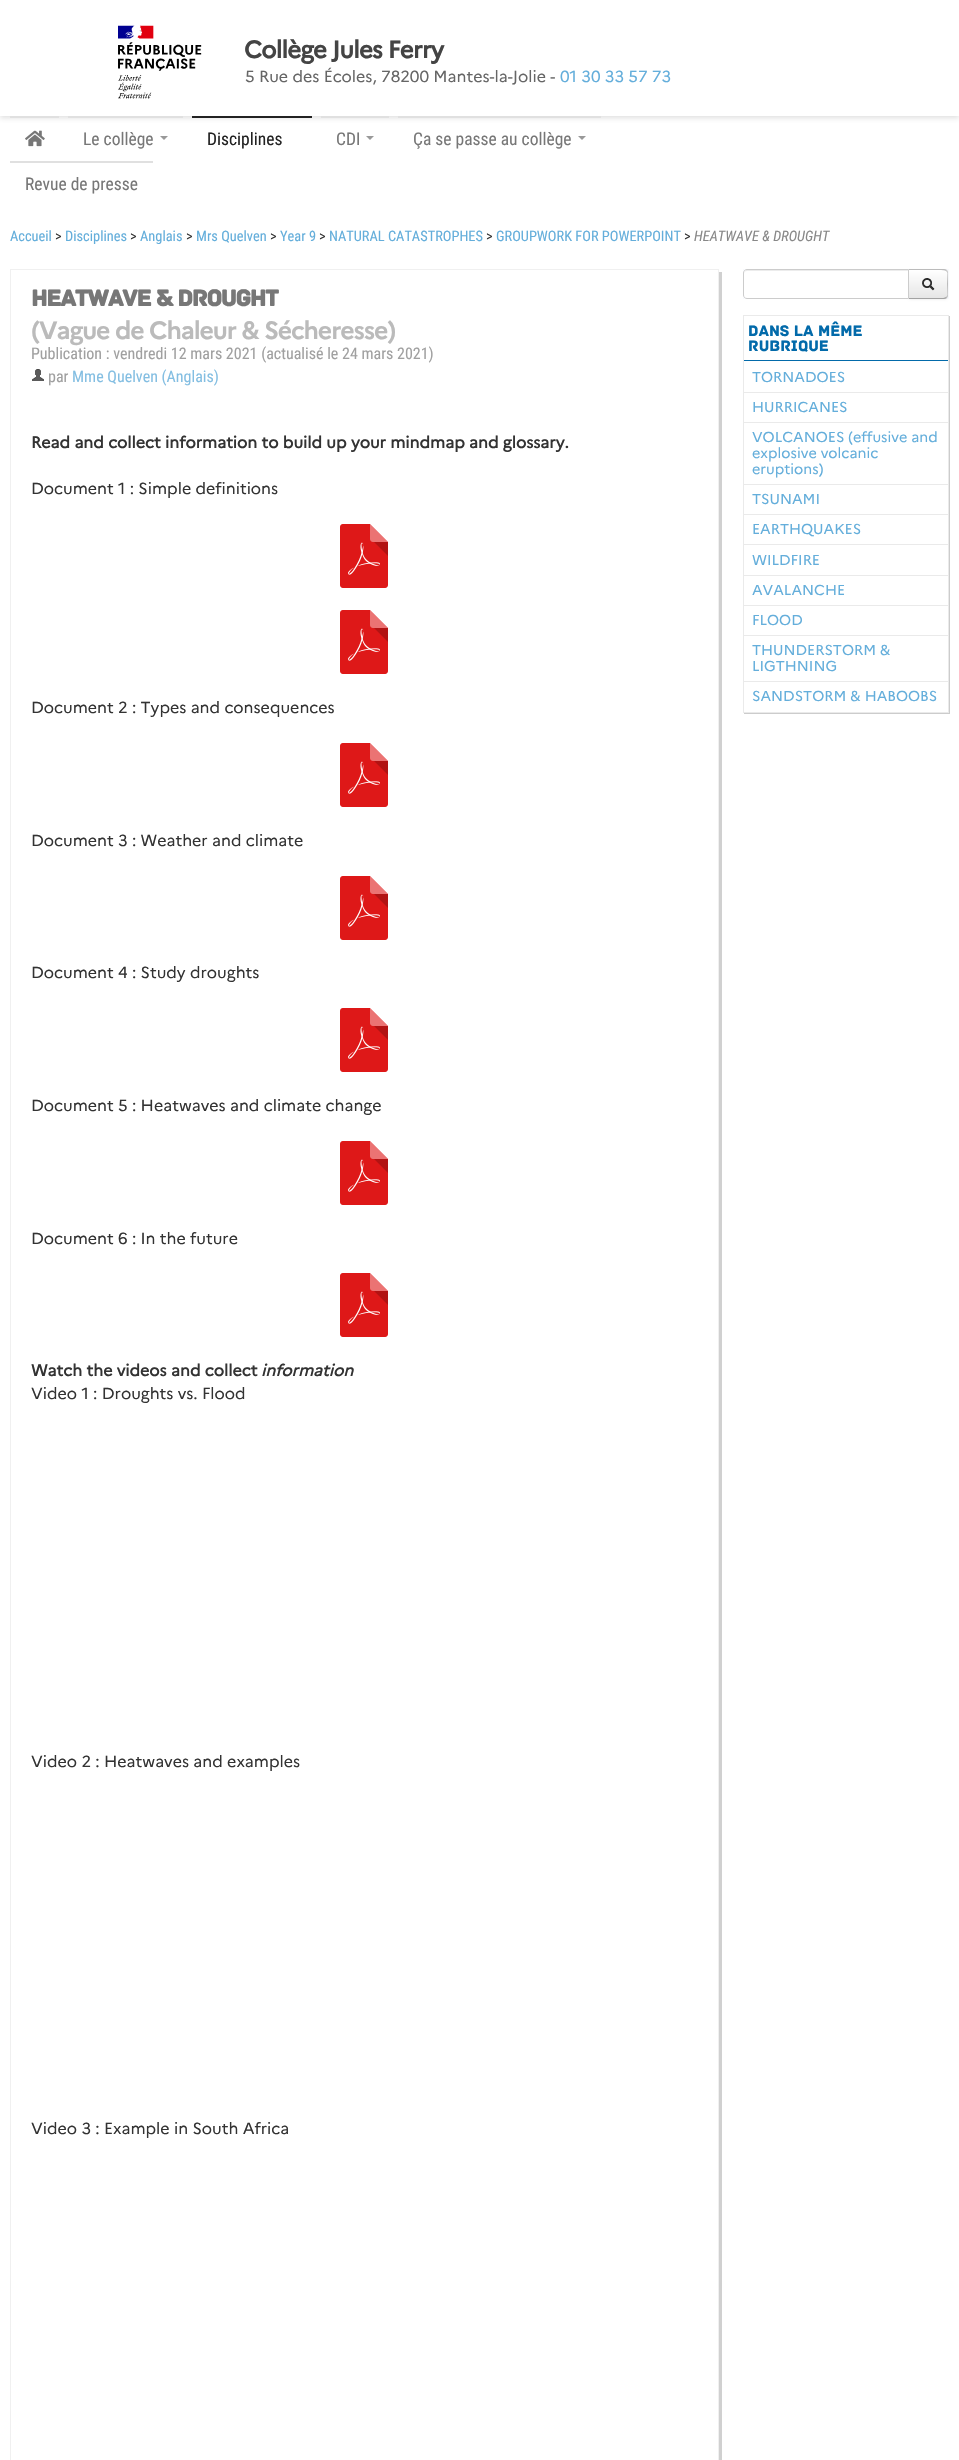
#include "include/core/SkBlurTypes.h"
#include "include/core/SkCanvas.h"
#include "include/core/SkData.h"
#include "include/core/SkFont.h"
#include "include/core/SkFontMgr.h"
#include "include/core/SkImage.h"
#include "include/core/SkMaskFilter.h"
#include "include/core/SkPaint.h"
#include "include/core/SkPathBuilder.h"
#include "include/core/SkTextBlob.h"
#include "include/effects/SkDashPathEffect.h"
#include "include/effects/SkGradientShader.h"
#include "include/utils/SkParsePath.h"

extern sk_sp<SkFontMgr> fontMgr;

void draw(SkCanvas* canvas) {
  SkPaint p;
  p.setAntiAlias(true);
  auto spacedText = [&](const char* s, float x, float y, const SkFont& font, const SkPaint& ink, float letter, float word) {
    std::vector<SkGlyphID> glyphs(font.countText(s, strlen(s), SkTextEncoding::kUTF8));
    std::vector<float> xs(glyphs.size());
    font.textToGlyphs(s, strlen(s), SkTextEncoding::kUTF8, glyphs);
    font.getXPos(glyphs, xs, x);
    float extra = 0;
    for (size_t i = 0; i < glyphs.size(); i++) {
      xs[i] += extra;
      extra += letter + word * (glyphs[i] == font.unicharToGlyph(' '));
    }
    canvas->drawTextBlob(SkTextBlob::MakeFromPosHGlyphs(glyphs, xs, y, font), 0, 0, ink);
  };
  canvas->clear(SK_ColorWHITE);
  canvas->save();
  canvas->clipRect(SkRect::MakeLTRB(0, 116, 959, 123));
  p.setColor(SkColorSetRGB(224, 224, 224));
  p.setMaskFilter(SkMaskFilter::MakeBlur(kNormal_SkBlurStyle, 2.5f));
  canvas->drawRect(SkRect::MakeLTRB(0, 2, 959, 118), p);
  p.setMaskFilter(nullptr);
  canvas->restore();
  canvas->drawImageRect(SkImages::DeferredFromEncodedData(SkData::MakeFromFileName("images/1.png")), SkRect::MakeLTRB(118, 25, 202, 99), SkSamplingOptions());
  canvas->drawRect(SkRect::MakeLTRB(10, 116, 59, 118), p);
  canvas->drawImageRect(SkImages::DeferredFromEncodedData(SkData::MakeFromFileName("images/2.png")), SkRect::MakeLTRB(25, 130, 45, 147), SkSamplingOptions());
  canvas->drawRect(SkRect::MakeLTRB(68, 116, 183, 118), p);
  p.setColor(SkColorSetRGB(153, 153, 153));
  canvas->drawPath(SkPathBuilder().moveTo(160, 136).lineTo(168, 136).lineTo(164, 140).close().detach(), p);
  p.setColor(SkColorSetRGB(34, 34, 34));
  canvas->drawRect(SkRect::MakeLTRB(192, 116, 312, 118), p);
  p.setColor(SkColorSetRGB(224, 224, 224));
  canvas->drawRect(SkRect::MakeLTRB(321, 116, 389, 118), p);
  p.setColor(SkColorSetRGB(153, 153, 153));
  canvas->drawPath(SkPathBuilder().moveTo(366, 136).lineTo(374, 136).lineTo(370, 140).close().detach(), p);
  p.setColor(SkColorSetRGB(224, 224, 224));
  canvas->drawRect(SkRect::MakeLTRB(398, 116, 601, 118), p);
  p.setColor(SkColorSetRGB(153, 153, 153));
  canvas->drawPath(SkPathBuilder().moveTo(578, 136).lineTo(586, 136).lineTo(582, 140).close().detach(), p);
  p.setColor(SkColorSetRGB(224, 224, 224));
  canvas->drawRect(SkRect::MakeLTRB(10, 161, 153, 163), p);
  p.setColor(SkColorSetRGB(208, 208, 208));
  canvas->drawPath(SkPathBuilder().moveTo(13, 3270).lineTo(13, 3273).lineTo(722, 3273).lineTo(722, 272).lineTo(719, 272).lineTo(719, 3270).close().detach(), p);
  p.setStyle(SkPaint::kStroke_Style);
  p.setStrokeWidth(1);
  p.setColor(SkColorSetRGB(240, 240, 240));
  canvas->drawRect(SkRect::MakeLTRB(10.5f, 269.5f, 718.5f, 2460.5f), p);
  canvas->drawImageRect(SkImages::DeferredFromEncodedData(SkData::MakeFromFileName("images/3.png")), SkRect::MakeLTRB(32, 369, 44, 381), SkSamplingOptions());
  canvas->drawImageRect(SkImages::DeferredFromEncodedData(SkData::MakeFromFileName("images/4.png")), SkRect::MakeLTRB(340, 524, 388, 588), SkSamplingOptions());
  canvas->drawImageRect(SkImages::DeferredFromEncodedData(SkData::MakeFromFileName("images/4.png")), SkRect::MakeLTRB(340, 610, 388, 674), SkSamplingOptions());
  canvas->drawImageRect(SkImages::DeferredFromEncodedData(SkData::MakeFromFileName("images/4.png")), SkRect::MakeLTRB(340, 743, 388, 807), SkSamplingOptions());
  canvas->drawImageRect(SkImages::DeferredFromEncodedData(SkData::MakeFromFileName("images/4.png")), SkRect::MakeLTRB(340, 876, 388, 940), SkSamplingOptions());
  canvas->drawImageRect(SkImages::DeferredFromEncodedData(SkData::MakeFromFileName("images/4.png")), SkRect::MakeLTRB(340, 1008, 388, 1072), SkSamplingOptions());
  canvas->drawImageRect(SkImages::DeferredFromEncodedData(SkData::MakeFromFileName("images/4.png")), SkRect::MakeLTRB(340, 1141, 388, 1205), SkSamplingOptions());
  canvas->drawImageRect(SkImages::DeferredFromEncodedData(SkData::MakeFromFileName("images/4.png")), SkRect::MakeLTRB(340, 1273, 388, 1337), SkSamplingOptions());
  p.setStyle(SkPaint::kFill_Style);
  p.setColor(SkColorSetRGB(249, 250, 253));
  canvas->drawRect(SkRect::MakeLTRB(743, 269, 949, 299), p);
  p.setColor(SkColorSetARGB(13, 0, 0, 0));
  p.setMaskFilter(SkMaskFilter::MakeBlur(kNormal_SkBlurStyle, 1));
  canvas->drawRoundRect(SkRect::MakeLTRB(908, 270, 948, 300), 4, 4, p);
  p.setMaskFilter(nullptr);
  canvas->save();
  canvas->clipPath(SkPathBuilder().moveTo(908, 269).lineTo(944, 269).cubicTo(946, 269, 948, 271, 948, 273).lineTo(948, 295).cubicTo(948, 297, 946, 299, 944, 299).lineTo(908, 299).close().detach(), true);
  {
    const SkColor colors[] = {SK_ColorWHITE, SkColorSetRGB(230, 230, 230)};
    const float stops[] = {0, 1};
    const SkPoint ends[] = {{928, 270}, {928, 298}};
    p.setShader(SkGradientShader::MakeLinear(ends, colors, stops, 2, SkTileMode::kClamp));
    p.setAlpha(255);
  }
  canvas->drawRect(SkRect::MakeLTRB(909, 270, 948, 298), p);
  canvas->restore();
  p.setShader(nullptr);
  p.setColor(SkColorSetRGB(187, 187, 187));
  canvas->drawPath(SkPathBuilder().moveTo(908, 269).lineTo(909, 270).lineTo(938, 270).cubicTo(942.5f, 270, 945, 270, 946, 271).lineTo(947, 270).cubicTo(946, 269.5f, 945, 269, 944, 269).close().detach(), p);
  canvas->drawPath(SkPathBuilder().moveTo(948, 295).lineTo(948, 273).cubicTo(948, 272, 947.5f, 271, 947, 270).lineTo(946, 271).cubicTo(947, 271.5f, 947, 272.5f, 947.5f, 273).lineTo(947, 284).lineTo(947.5f, 295).cubicTo(947, 295.5f, 947, 296.5f, 946, 297).lineTo(947, 298).cubicTo(947.5f, 297, 948, 296, 948, 295).close().detach(), p);
  p.setColor(SkColorSetRGB(162, 162, 162));
  canvas->drawPath(SkPathBuilder().moveTo(944, 299).cubicTo(945, 299, 946, 298.5f, 947, 298).lineTo(946, 297).cubicTo(945, 298, 942.5f, 298, 938, 298).lineTo(909, 298).lineTo(908, 299).close().detach(), p);
  p.setColor(SK_ColorWHITE);
  canvas->drawPath(SkPathBuilder().moveTo(747, 269).lineTo(909, 269).lineTo(909, 299).lineTo(747, 299).cubicTo(745, 299, 743, 297, 743, 295).lineTo(743, 273).cubicTo(743, 271, 745, 269, 747, 269).close().detach(), p);
  p.setColor(SkColorSetRGB(236, 236, 236));
  canvas->drawPath(SkPathBuilder().moveTo(747, 271).lineTo(908, 271).lineTo(908, 270).lineTo(747, 270).cubicTo(745, 270, 744, 272, 744, 274).cubicTo(744, 272, 745, 271, 747, 271).close().detach(), p);
  p.setStyle(SkPaint::kStroke_Style);
  p.setColor(SkColorSetRGB(204, 204, 204));
  canvas->drawPath(SkPathBuilder().moveTo(747, 269.5f).lineTo(908.5f, 269.5f).lineTo(908.5f, 298.5f).lineTo(747, 298.5f).cubicTo(745, 298.5f, 743.5f, 297, 743.5f, 295).lineTo(743.5f, 273).cubicTo(743.5f, 271, 745, 269.5f, 747, 269.5f).close().detach(), p);
  canvas->drawImageRect(SkImages::DeferredFromEncodedData(SkData::MakeFromFileName("images/5.png")), SkRect::MakeLTRB(922, 278, 935, 291), SkSamplingOptions());
  p.setStyle(SkPaint::kFill_Style);
  canvas->drawPath(SkPathBuilder().moveTo(744, 713).lineTo(744, 714).lineTo(950, 714).lineTo(950, 316).lineTo(949, 316).lineTo(949, 713).close().detach(), p);
  p.setStyle(SkPaint::kStroke_Style);
  p.setColor(SkColorSetRGB(234, 234, 234));
  canvas->drawRect(SkRect::MakeLTRB(743.5f, 315.5f, 948.5f, 712.5f), p);
  p.setStyle(SkPaint::kFill_Style);
  p.setColor(SkColorSetRGB(2, 106, 170));
  canvas->drawRect(SkRect::MakeLTRB(744, 360, 948, 361), p);
  p.setColor(SkColorSetRGB(234, 234, 234));
  canvas->drawRect(SkRect::MakeLTRB(744, 392, 948, 393), p);
  canvas->drawRect(SkRect::MakeLTRB(744, 422, 948, 423), p);
  canvas->drawRect(SkRect::MakeLTRB(744, 484, 948, 485), p);
  canvas->drawRect(SkRect::MakeLTRB(744, 514, 948, 515), p);
  canvas->drawRect(SkRect::MakeLTRB(744, 544, 948, 545), p);
  canvas->drawRect(SkRect::MakeLTRB(744, 575, 948, 576), p);
  canvas->drawRect(SkRect::MakeLTRB(744, 605, 948, 606), p);
  canvas->drawRect(SkRect::MakeLTRB(744, 635, 948, 636), p);
  canvas->drawRect(SkRect::MakeLTRB(744, 681, 948, 682), p);
  SkFont font1(fontMgr->matchFamilyStyle("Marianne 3", SkFontStyle::Bold()), 24);
  font1.setSubpixel(true);
  p.setColor(SkColorSetRGB(68, 68, 68));
  spacedText("Collège Jules Ferry", 244, 58, font1, p, -0.75f, 0);
  SkFont font2(fontMgr->matchFamilyStyle("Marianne", SkFontStyle::Normal()), 16);
  font2.setSubpixel(true);
  p.setColor(SkColorSetRGB(102, 102, 102));
  canvas->drawString("5 Rue des Écoles, 78200 Mantes-la-Jolie -", 245, 82, font2, p);
  p.setColor(SkColorSetRGB(100, 174, 219));
  canvas->drawString("01 30 33 57 73", 560, 82, font2, p);
  SkFont font3(fontMgr->matchFamilyStyle("Roboto Condensed", SkFontStyle::Normal()), 17.5f);
  font3.setSubpixel(true);
  p.setColor(SkColorSetRGB(119, 119, 119));
  canvas->drawString("Le collège", 83, 145, font3, p);
  p.setColor(SkColorSetRGB(34, 34, 34));
  canvas->drawString("Disciplines", 207, 145, font3, p);
  p.setColor(SkColorSetRGB(119, 119, 119));
  canvas->drawString("CDI", 336, 145, font3, p);
  canvas->drawString("Ça se passe au collège", 413, 145, font3, p);
  canvas->drawString("Revue de presse", 25, 190, font3, p);
  SkFont font4(fontMgr->matchFamilyStyle("Roboto Condensed", SkFontStyle::Normal()), 14.4f);
  font4.setSubpixel(true);
  p.setColor(SkColorSetRGB(100, 174, 219));
  canvas->drawString("Accueil", 10, 241, font4, p);
  p.setColor(SkColorSetRGB(51, 51, 51));
  canvas->drawString(">", 55, 241, font4, p);
  p.setColor(SkColorSetRGB(100, 174, 219));
  canvas->drawString("Disciplines", 65, 241, font4, p);
  p.setColor(SkColorSetRGB(51, 51, 51));
  canvas->drawString(">", 130, 241, font4, p);
  p.setColor(SkColorSetRGB(100, 174, 219));
  canvas->drawString("Anglais", 140, 241, font4, p);
  p.setColor(SkColorSetRGB(51, 51, 51));
  canvas->drawString(">", 186, 241, font4, p);
  p.setColor(SkColorSetRGB(100, 174, 219));
  canvas->drawString("Mrs Quelven", 196, 241, font4, p);
  p.setColor(SkColorSetRGB(51, 51, 51));
  canvas->drawString(">", 270, 241, font4, p);
  p.setColor(SkColorSetRGB(100, 174, 219));
  canvas->drawString("Year 9", 280, 241, font4, p);
  p.setColor(SkColorSetRGB(51, 51, 51));
  canvas->drawString(">", 319, 241, font4, p);
  p.setColor(SkColorSetRGB(100, 174, 219));
  canvas->drawString("NATURAL CATASTROPHES", 329, 241, font4, p);
  p.setColor(SkColorSetRGB(51, 51, 51));
  canvas->drawString(">", 486, 241, font4, p);
  p.setColor(SkColorSetRGB(100, 174, 219));
  canvas->drawString("GROUPWORK FOR POWERPOINT", 496, 241, font4, p);
  p.setColor(SkColorSetRGB(51, 51, 51));
  canvas->drawString(">", 684, 241, font4, p);
  SkFont font5(fontMgr->matchFamilyStyle("Roboto Condensed", SkFontStyle::Italic()), 14.4f);
  font5.setSubpixel(true);
  p.setColor(SkColorSetRGB(136, 136, 136));
  canvas->drawString("HEATWAVE & DROUGHT", 694, 241, font5, p);
  SkFont font6(fontMgr->matchFamilyStyle("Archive", SkFontStyle::Bold()), 24);
  font6.setSubpixel(true);
  p.setColor(SkColorSetRGB(119, 119, 119));
  spacedText("HEATWAVE & DROUGHT", 31, 306, font6, p, -1.15f, 0);
  SkFont font7(fontMgr->matchFamilyStyle("Marianne", SkFontStyle::Bold()), 25);
  font7.setSubpixel(true);
  p.setColor(SkColorSetRGB(187, 187, 187));
  spacedText("(Vague de Chaleur & Sécheresse)", 31, 339, font7, p, -1.15f, 0);
  SkFont font8(fontMgr->matchFamilyStyle("Roboto Condensed", SkFontStyle::Normal()), 16);
  font8.setSubpixel(true);
  p.setColor(SkColorSetRGB(160, 160, 160));
  canvas->drawString("Publication : vendredi 12 mars 2021 (actualisé le 24 mars 2021)", 31, 359, font8, p);
  canvas->drawString("par", 48, 382, font8, p);
  p.setColor(SkColorSetRGB(131, 190, 226));
  canvas->drawString("Mme Quelven (Anglais)", 72, 382, font8, p);
  SkFont font9(fontMgr->matchFamilyStyle("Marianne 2", SkFontStyle::Bold()), 16);
  font9.setSubpixel(true);
  p.setColor(SkColorSetRGB(51, 51, 51));
  canvas->drawString("Read and collect information to build up your mindmap and glossary.", 31, 448, font9, p);
  canvas->drawString("Document 1 : Simple definitions", 31, 494, font2, p);
  canvas->drawString("Document 2 : Types and consequences", 31, 713, font2, p);
  canvas->drawString("Document 3 : Weather and climate", 31, 846, font2, p);
  canvas->drawString("Document 4 : Study droughts", 31, 978, font2, p);
  canvas->drawString("Document 5 : Heatwaves and climate change", 31, 1111, font2, p);
  canvas->drawString("Document 6 : In the future", 31, 1244, font2, p);
  canvas->drawString("Watch the videos and collect", 31, 1376, font9, p);
  SkFont font10(fontMgr->matchFamilyStyle("Marianne", SkFontStyle::BoldItalic()), 16);
  font10.setSubpixel(true);
  canvas->drawString("information", 261, 1376, font10, p);
  canvas->drawString("Video 1 : Droughts vs. Flood", 31, 1399, font2, p);
  canvas->drawString("Video 2 : Heatwaves and examples", 31, 1767, font2, p);
  canvas->drawString("Video 3 : Example in South Africa", 31, 2134, font2, p);
  SkFont font11(fontMgr->matchFamilyStyle("Archive", SkFontStyle::Normal()), 16);
  font11.setSubpixel(true);
  p.setColor(SkColorSetRGB(2, 106, 170));
  canvas->drawString("Dans la même", 748, 336, font11, p);
  canvas->drawString("rubrique", 748, 351, font11, p);
  SkFont font12(fontMgr->matchFamilyStyle("Marianne", SkFontStyle::Normal()), 14.4f);
  font12.setSubpixel(true);
  p.setColor(SkColorSetRGB(100, 174, 219));
  canvas->drawString("TORNADOES", 752, 382, font12, p);
  canvas->drawString("HURRICANES", 752, 412, font12, p);
  canvas->drawString("VOLCANOES (effusive and", 752, 442, font12, p);
  canvas->drawString("explosive volcanic", 752, 458, font12, p);
  canvas->drawString("eruptions)", 752, 474, font12, p);
  canvas->drawString("TSUNAMI", 752, 504, font12, p);
  canvas->drawString("EARTHQUAKES", 752, 534, font12, p);
  canvas->drawString("WILDFIRE", 752, 565, font12, p);
  canvas->drawString("AVALANCHE", 752, 595, font12, p);
  canvas->drawString("FLOOD", 752, 625, font12, p);
  canvas->drawString("THUNDERSTORM &", 752, 655, font12, p);
  canvas->drawString("LIGTHNING", 752, 671, font12, p);
  canvas->drawString("SANDSTORM & HABOOBS", 752, 701, font12, p);
}
